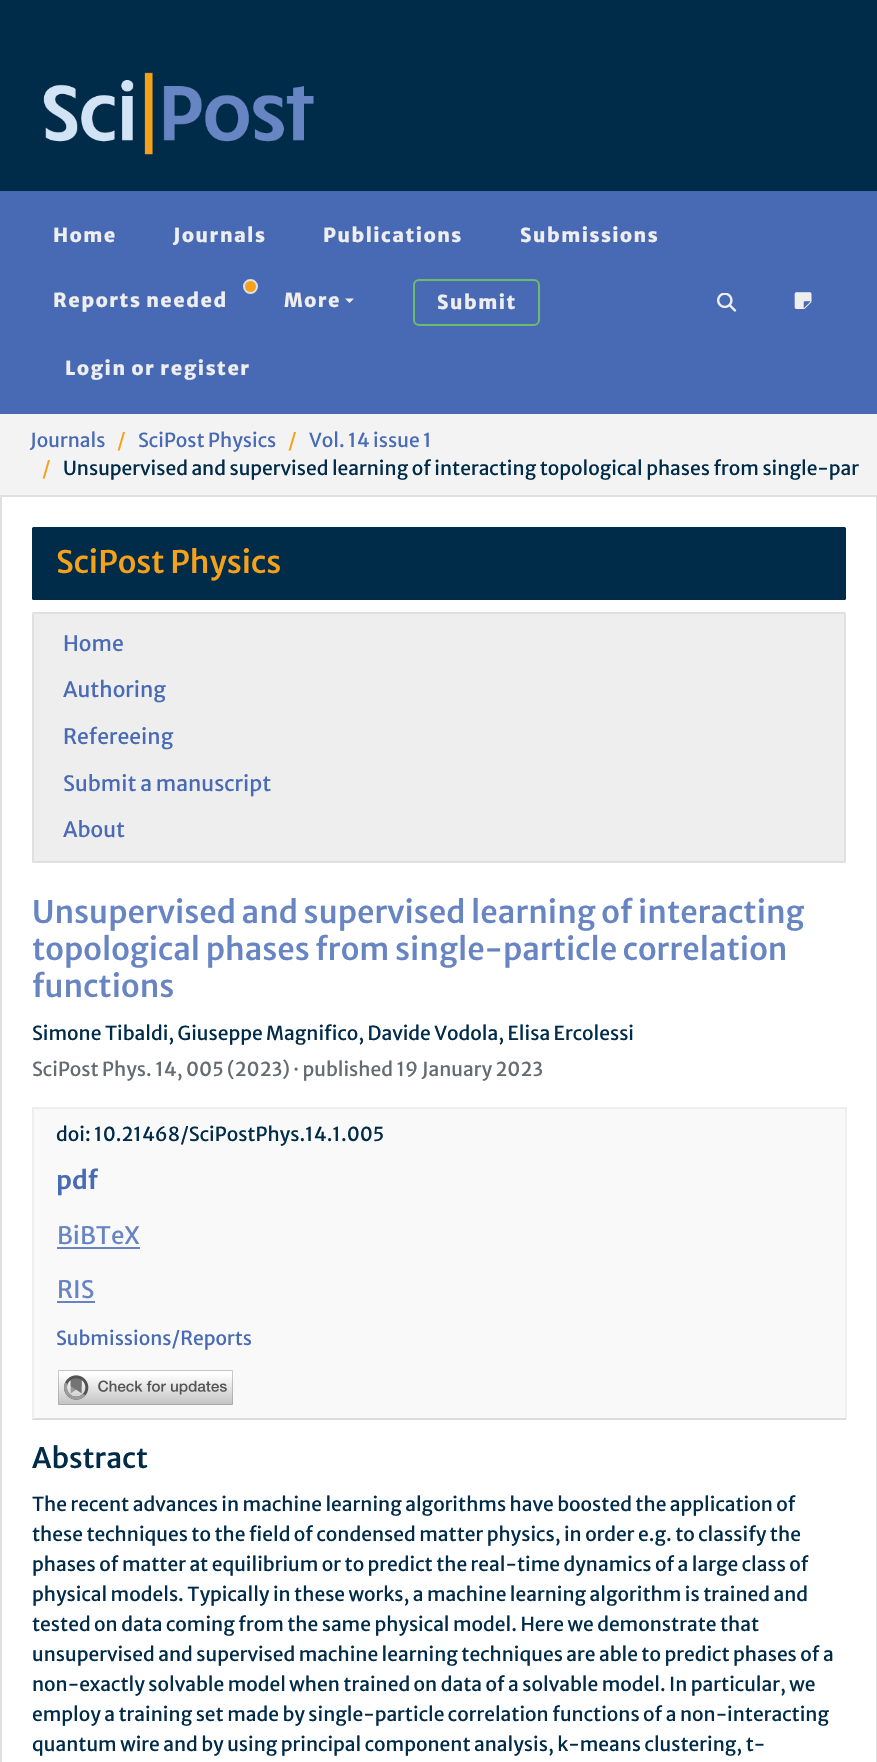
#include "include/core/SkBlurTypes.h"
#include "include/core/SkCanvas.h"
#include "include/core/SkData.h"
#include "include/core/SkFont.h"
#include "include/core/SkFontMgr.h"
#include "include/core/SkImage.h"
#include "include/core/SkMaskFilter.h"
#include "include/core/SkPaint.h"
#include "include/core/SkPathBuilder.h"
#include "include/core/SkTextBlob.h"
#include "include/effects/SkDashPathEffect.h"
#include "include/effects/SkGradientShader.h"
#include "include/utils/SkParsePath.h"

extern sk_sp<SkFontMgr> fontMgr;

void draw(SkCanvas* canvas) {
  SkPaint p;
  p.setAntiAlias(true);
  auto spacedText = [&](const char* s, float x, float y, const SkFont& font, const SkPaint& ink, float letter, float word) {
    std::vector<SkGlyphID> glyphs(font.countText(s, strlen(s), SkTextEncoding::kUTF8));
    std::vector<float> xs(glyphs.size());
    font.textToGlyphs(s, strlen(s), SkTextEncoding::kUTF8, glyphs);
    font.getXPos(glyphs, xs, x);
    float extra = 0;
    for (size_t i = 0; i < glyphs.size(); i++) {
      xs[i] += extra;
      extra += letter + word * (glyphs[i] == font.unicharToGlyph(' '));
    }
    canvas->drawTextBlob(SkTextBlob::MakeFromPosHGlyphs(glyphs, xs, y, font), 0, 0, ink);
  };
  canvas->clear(SkColorSetRGB(243, 243, 243));
  p.setColor(SkColorSetRGB(0, 43, 73));
  canvas->drawRect(SkRect::MakeLTRB(0, 0, 877, 191), p);
  canvas->drawImageRect(SkImages::DeferredFromEncodedData(SkData::MakeFromFileName("images/1.png")), SkRect::MakeLTRB(43, 72, 314, 155), SkSamplingOptions());
  p.setColor(SkColorSetRGB(72, 105, 180));
  canvas->drawRect(SkRect::MakeLTRB(0, 191, 877, 414), p);
  p.setColor(SkColorSetRGB(246, 161, 26));
  canvas->drawCircle(250.5f, 286.5f, 6.5f, p);
  p.setStyle(SkPaint::kStroke_Style);
  p.setStrokeWidth(2);
  p.setColor(SkColorSetRGB(222, 226, 230));
  canvas->drawCircle(250.5f, 286.5f, 6.5f, p);
  p.setStyle(SkPaint::kFill_Style);
  p.setColor(SkColorSetRGB(238, 238, 238));
  canvas->drawPath(SkPathBuilder().moveTo(345, 298.5f).lineTo(354, 298.5f).lineTo(349.5f, 303).close().detach(), p);
  p.setStyle(SkPaint::kStroke_Style);
  p.setColor(SkColorSetRGB(110, 187, 110));
  canvas->drawRoundRect(SkRect::MakeLTRB(414, 280, 539, 325), 5, 5, p);
  canvas->drawImageRect(SkImages::DeferredFromEncodedData(SkData::MakeFromFileName("images/2.png")), SkRect::MakeLTRB(717, 293, 737, 312), SkSamplingOptions());
  canvas->drawImageRect(SkImages::DeferredFromEncodedData(SkData::MakeFromFileName("images/3.png")), SkRect::MakeLTRB(794, 292, 812, 309), SkSamplingOptions());
  p.setStyle(SkPaint::kFill_Style);
  p.setColor(SK_ColorWHITE);
  canvas->drawRect(SkRect::MakeLTRB(2, 497, 876, 1762), p);
  p.setColor(SkColorSetRGB(224, 224, 224));
  canvas->drawRect(SkRect::MakeLTRB(0, 495, 877, 497), p);
  canvas->drawRect(SkRect::MakeLTRB(876, 495, 877, 1762), p);
  canvas->drawRect(SkRect::MakeLTRB(0, 495, 2, 1762), p);
  p.setColor(SkColorSetRGB(0, 43, 73));
  canvas->drawRoundRect(SkRect::MakeLTRB(32, 527, 846, 600), 1.5f, 1.5f, p);
  p.setColor(SkColorSetRGB(238, 238, 238));
  canvas->drawRoundRect(SkRect::MakeLTRB(33, 613, 845, 862), 0.5f, 0.5f, p);
  p.setStyle(SkPaint::kStroke_Style);
  p.setColor(SkColorSetRGB(224, 224, 224));
  canvas->drawRoundRect(SkRect::MakeLTRB(33, 613, 845, 862), 0.5f, 0.5f, p);
  p.setStyle(SkPaint::kFill_Style);
  p.setColor(SkColorSetRGB(249, 249, 249));
  canvas->drawRect(SkRect::MakeLTRB(34, 1109, 845, 1418), p);
  p.setColor(SkColorSetRGB(238, 238, 238));
  canvas->drawRect(SkRect::MakeLTRB(32, 1107, 846, 1109), p);
  canvas->drawRect(SkRect::MakeLTRB(845, 1107, 847, 1419), p);
  p.setColor(SkColorSetRGB(221, 221, 221));
  canvas->drawRect(SkRect::MakeLTRB(32, 1418, 846, 1420), p);
  p.setColor(SkColorSetRGB(238, 238, 238));
  canvas->drawRect(SkRect::MakeLTRB(32, 1107, 34, 1419), p);
  p.setColor(SkColorSetRGB(104, 133, 195));
  canvas->drawRect(SkRect::MakeLTRB(57, 1247, 140, 1249), p);
  canvas->drawRect(SkRect::MakeLTRB(57, 1301, 95, 1303), p);
  canvas->drawImageRect(SkImages::DeferredFromEncodedData(SkData::MakeFromFileName("images/4.png")), SkRect::MakeLTRB(58, 1370, 233, 1405), SkSamplingOptions());
  SkFont font1(fontMgr->matchFamilyStyle("Merriweather Sans", SkFontStyle(800, SkFontStyle::kNormal_Width, SkFontStyle::kUpright_Slant)), 19.2f);
  font1.setSubpixel(true);
  p.setColor(SkColorSetRGB(238, 238, 238));
  spacedText("Home", 53, 242, font1, p, 1.5f, 0);
  spacedText("Journals", 173, 242, font1, p, 1.5f, 0);
  spacedText("Publications", 323, 242, font1, p, 1.5f, 0);
  spacedText("Submissions", 520, 242, font1, p, 1.5f, 0);
  spacedText("Reports needed", 53, 307, font1, p, 1.5f, 0);
  spacedText("More", 284, 307, font1, p, 1.5f, 0);
  spacedText("Submit", 437, 309, font1, p, 1.5f, 0);
  spacedText("Login or register", 65, 375, font1, p, 1.5f, 0);
  SkFont font2(fontMgr->matchFamilyStyle("Merriweather Sans", SkFontStyle::Normal()), 19.2f);
  font2.setSubpixel(true);
  p.setColor(SkColorSetRGB(73, 107, 182));
  canvas->drawString("Journals", 30, 447, font2, p);
  p.setColor(SkColorSetRGB(246, 161, 26));
  canvas->drawString("/", 117, 447, font2, p);
  p.setColor(SkColorSetRGB(73, 107, 182));
  canvas->drawString("SciPost Physics", 138, 447, font2, p);
  p.setColor(SkColorSetRGB(246, 161, 26));
  canvas->drawString("/", 288, 447, font2, p);
  p.setColor(SkColorSetRGB(73, 107, 182));
  canvas->drawString("Vol. 14 issue 1", 309, 447, font2, p);
  p.setColor(SkColorSetRGB(246, 161, 26));
  canvas->drawString("/", 42, 475, font2, p);
  p.setColor(SkColorSetRGB(0, 43, 73));
  canvas->drawString("Unsupervised and supervised learning of interacting topological phases from single-par", 63, 475, font2, p);
  SkFont font3(fontMgr->matchFamilyStyle("Merriweather Sans", SkFontStyle(500, SkFontStyle::kNormal_Width, SkFontStyle::kUpright_Slant)), 30.9f);
  font3.setSubpixel(true);
  p.setColor(SkColorSetRGB(246, 161, 26));
  canvas->drawString("SciPost Physics", 56, 573, font3, p);
  SkFont font4(fontMgr->matchFamilyStyle("Merriweather Sans", SkFontStyle::Normal()), 21.1f);
  font4.setSubpixel(true);
  p.setColor(SkColorSetRGB(73, 107, 182));
  canvas->drawString("Home", 63, 651, font4, p);
  canvas->drawString("Authoring", 63, 697, font4, p);
  canvas->drawString("Refereeing", 63, 744, font4, p);
  canvas->drawString("Submit a manuscript", 63, 791, font4, p);
  canvas->drawString("About", 63, 837, font4, p);
  p.setColor(SkColorSetRGB(104, 133, 195));
  canvas->drawString("Unsupervised and supervised learning of interacting", 32, 923, font3, p);
  canvas->drawString("topological phases from single-particle correlation", 32, 960, font3, p);
  canvas->drawString("functions", 32, 997, font3, p);
  p.setColor(SkColorSetRGB(0, 43, 73));
  canvas->drawString("Simone Tibaldi, Giuseppe Magnifico, Davide Vodola, Elisa Ercolessi", 32, 1040, font2, p);
  p.setColor(SkColorSetRGB(99, 108, 114));
  canvas->drawString("SciPost Phys. 14, 005 (2023) · published 19 January 2023", 32, 1076, font2, p);
  p.setColor(SkColorSetRGB(0, 43, 73));
  canvas->drawString("doi: 10.21468/SciPostPhys.14.1.005", 56, 1141, font2, p);
  SkFont font5(fontMgr->matchFamilyStyle("Merriweather Sans", SkFontStyle(600, SkFontStyle::kNormal_Width, SkFontStyle::kUpright_Slant)), 25);
  font5.setSubpixel(true);
  p.setColor(SkColorSetRGB(73, 107, 182));
  canvas->drawString("pdf", 56, 1189, font5, p);
  SkFont font6(fontMgr->matchFamilyStyle("Merriweather Sans", SkFontStyle::Normal()), 24);
  font6.setSubpixel(true);
  p.setColor(SkColorSetRGB(104, 133, 195));
  canvas->drawString("BiBTeX", 57, 1244, font6, p);
  canvas->drawString("RIS", 57, 1298, font6, p);
  p.setColor(SkColorSetRGB(73, 107, 182));
  canvas->drawString("Submissions/Reports", 56, 1345, font2, p);
  SkFont font7(fontMgr->matchFamilyStyle("Merriweather Sans", SkFontStyle(500, SkFontStyle::kNormal_Width, SkFontStyle::kUpright_Slant)), 28);
  font7.setSubpixel(true);
  p.setColor(SkColorSetRGB(0, 43, 73));
  canvas->drawString("Abstract", 32, 1468, font7, p);
  canvas->drawString("The recent advances in machine learning algorithms have boosted the application of", 32, 1511, font2, p);
  canvas->drawString("these techniques to the field of condensed matter physics, in order e.g. to classify the", 32, 1541, font2, p);
  canvas->drawString("phases of matter at equilibrium or to predict the real-time dynamics of a large class of", 32, 1571, font2, p);
  canvas->drawString("physical models. Typically in these works, a machine learning algorithm is trained and", 32, 1601, font2, p);
  canvas->drawString("tested on data coming from the same physical model. Here we demonstrate that", 32, 1631, font2, p);
  canvas->drawString("unsupervised and supervised machine learning techniques are able to predict phases of a", 32, 1661, font2, p);
  canvas->drawString("non-exactly solvable model when trained on data of a solvable model. In particular, we", 32, 1691, font2, p);
  canvas->drawString("employ a training set made by single-particle correlation functions of a non-interacting", 32, 1721, font2, p);
  canvas->drawString("quantum wire and by using principal component analysis, k-means clustering, t-", 32, 1751, font2, p);
}
